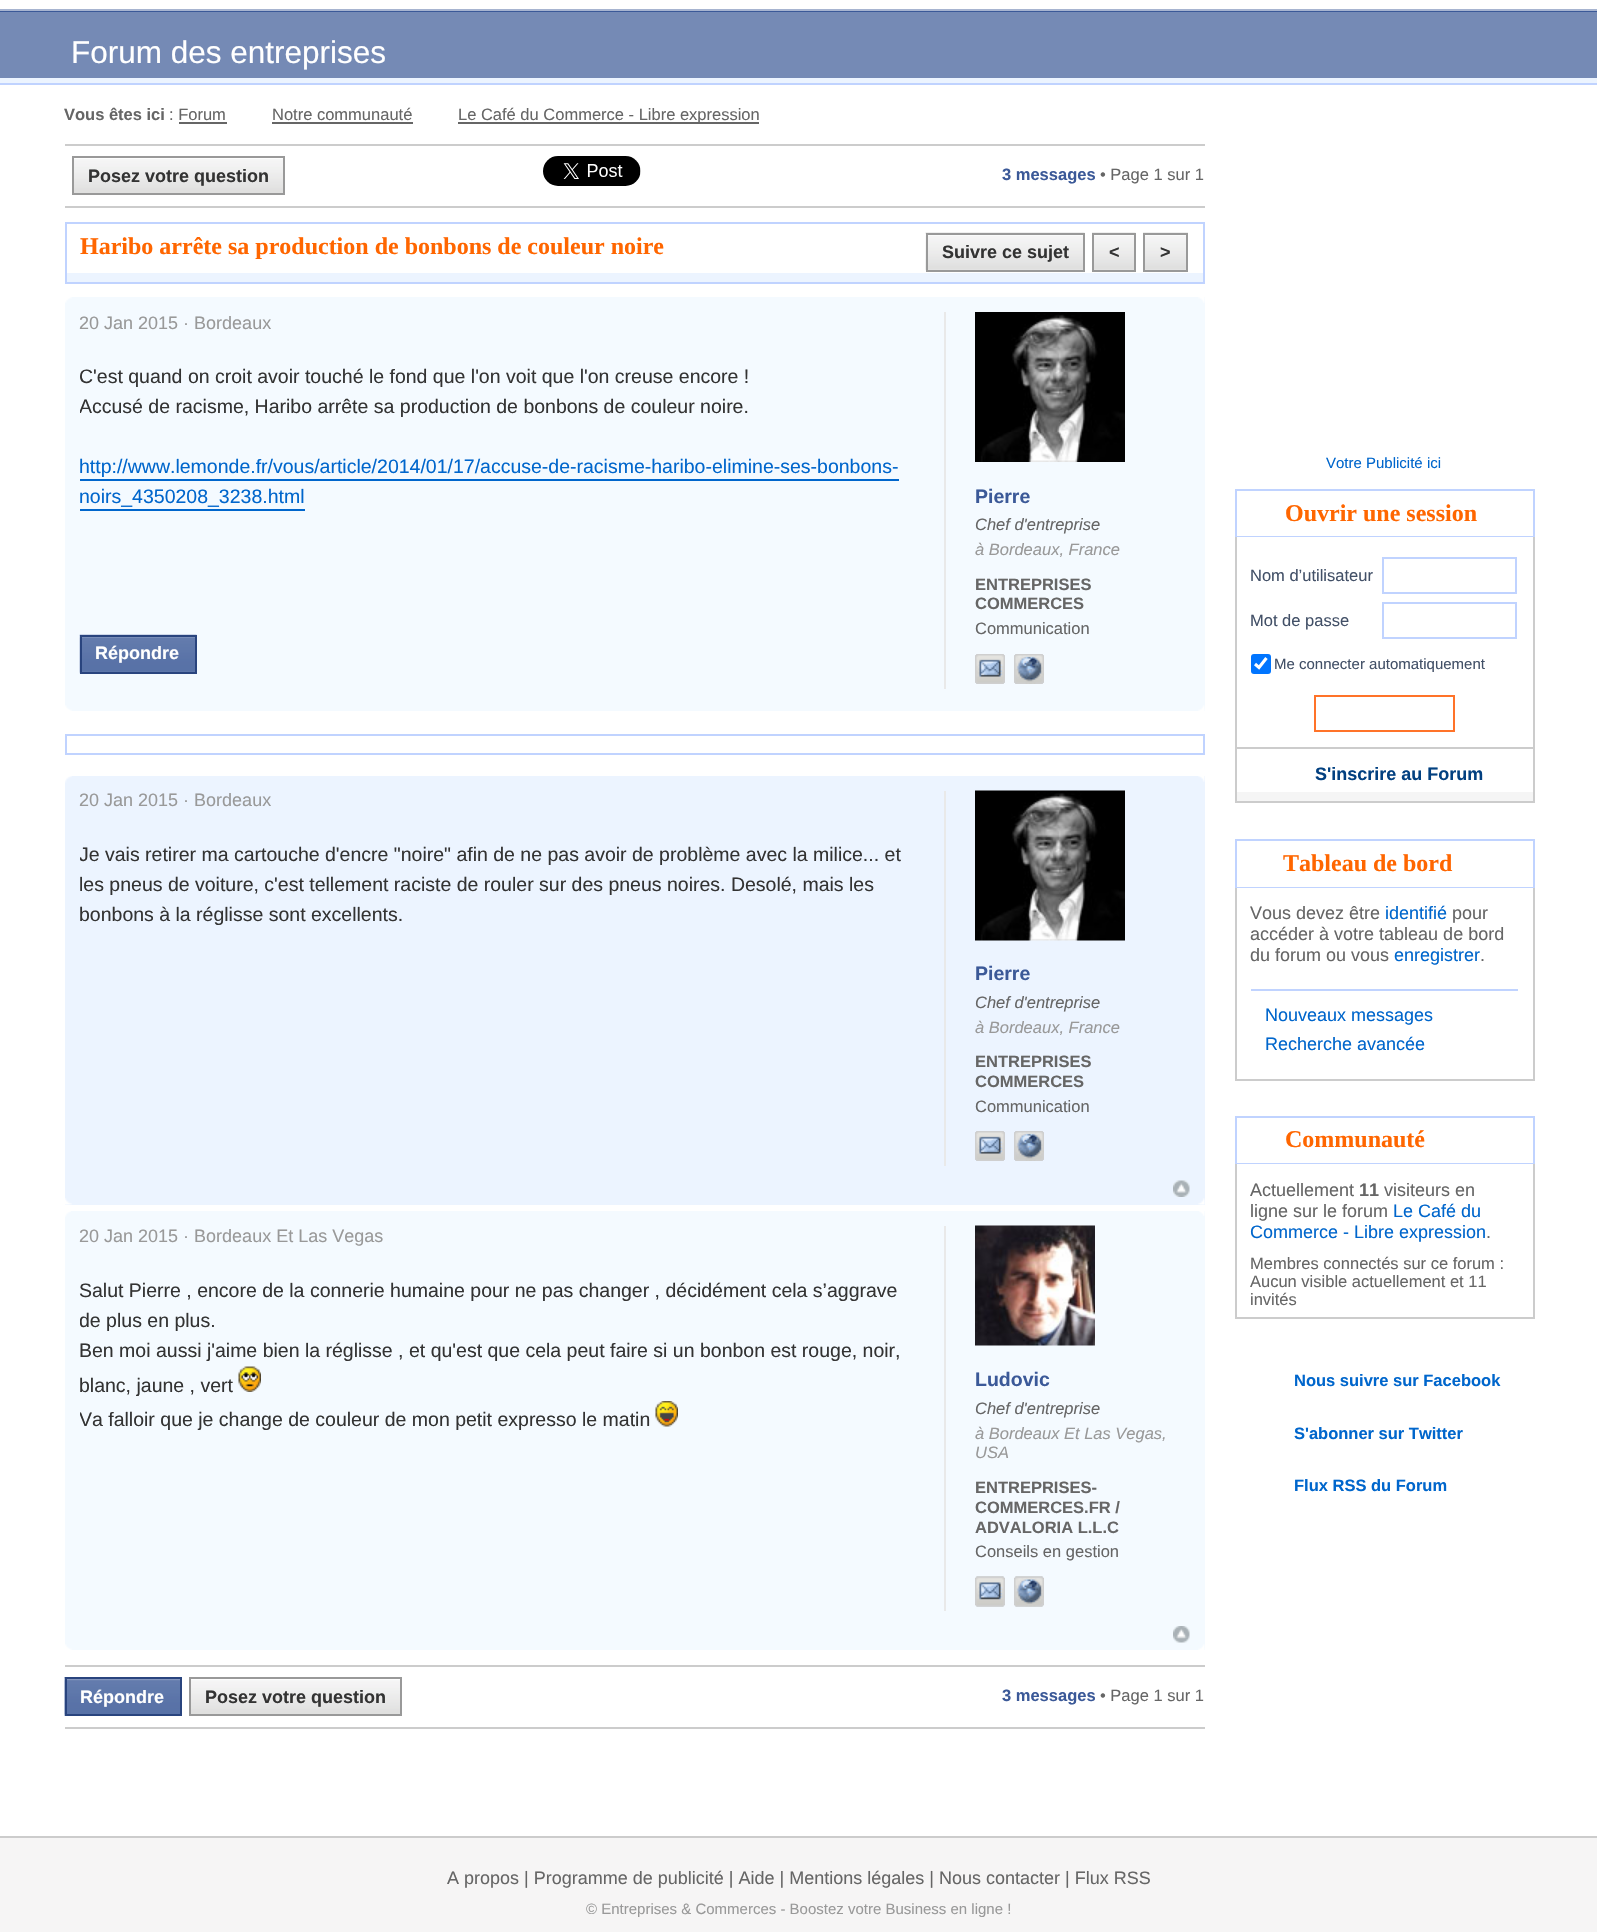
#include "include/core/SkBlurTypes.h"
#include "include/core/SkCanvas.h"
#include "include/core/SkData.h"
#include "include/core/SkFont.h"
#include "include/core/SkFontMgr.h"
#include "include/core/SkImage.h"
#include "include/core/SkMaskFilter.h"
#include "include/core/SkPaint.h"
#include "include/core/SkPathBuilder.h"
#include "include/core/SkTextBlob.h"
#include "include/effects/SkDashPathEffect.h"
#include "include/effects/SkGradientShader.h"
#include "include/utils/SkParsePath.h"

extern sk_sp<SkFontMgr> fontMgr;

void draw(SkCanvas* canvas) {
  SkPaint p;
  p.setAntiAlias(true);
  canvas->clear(SK_ColorWHITE);
  p.setColor(SkColorSetRGB(167, 180, 208));
  canvas->drawRect(SkRect::MakeLTRB(0, 9, 1597, 11), p);
  p.setColor(SkColorSetRGB(59, 89, 152));
  canvas->drawRect(SkRect::MakeLTRB(0, 11, 1597, 12), p);
  p.setColor(SkColorSetRGB(117, 138, 181));
  canvas->drawRect(SkRect::MakeLTRB(0, 12, 1597, 78), p);
  p.setColor(SkColorSetRGB(236, 244, 255));
  canvas->drawRect(SkRect::MakeLTRB(0, 78, 1597, 83), p);
  p.setColor(SkColorSetRGB(192, 211, 255));
  canvas->drawRect(SkRect::MakeLTRB(0, 83, 1597, 85), p);
  p.setColor(SkColorSetRGB(102, 102, 102));
  canvas->drawRect(SkRect::MakeLTRB(272, 122, 413, 124), p);
  canvas->drawRect(SkRect::MakeLTRB(458, 122, 759, 124), p);
  canvas->drawRect(SkRect::MakeLTRB(179, 122, 227, 124), p);
  p.setColor(SkColorSetRGB(204, 204, 204));
  canvas->drawRect(SkRect::MakeLTRB(65, 144, 1205, 146), p);
  canvas->drawImageRect(SkImages::DeferredFromEncodedData(SkData::MakeFromFileName("images/1.png")), SkRect::MakeLTRB(74, 158, 283, 193), SkSamplingOptions());
  p.setStyle(SkPaint::kStroke_Style);
  p.setStrokeWidth(2);
  p.setColor(SkColorSetRGB(153, 153, 153));
  canvas->drawRect(SkRect::MakeLTRB(73, 157, 284, 194), p);
  canvas->drawImageRect(SkImages::DeferredFromEncodedData(SkData::MakeFromFileName("images/2.png")), SkRect::MakeLTRB(543, 156, 641, 186), SkSamplingOptions());
  p.setStyle(SkPaint::kFill_Style);
  p.setColor(SkColorSetRGB(204, 204, 204));
  canvas->drawRect(SkRect::MakeLTRB(65, 206, 1205, 208), p);
  p.setColor(SkColorSetRGB(192, 211, 255));
  canvas->drawRect(SkRect::MakeLTRB(65, 222, 1205, 224), p);
  canvas->drawRect(SkRect::MakeLTRB(1203, 222, 1205, 284), p);
  canvas->drawRect(SkRect::MakeLTRB(65, 222, 67, 273), p);
  canvas->drawImageRect(SkImages::DeferredFromEncodedData(SkData::MakeFromFileName("images/3.png")), SkRect::MakeLTRB(925, 232, 1085, 271), SkSamplingOptions());
  p.setStyle(SkPaint::kStroke_Style);
  p.setColor(SkColorSetRGB(153, 153, 153));
  canvas->drawRect(SkRect::MakeLTRB(927, 234, 1084, 271), p);
  canvas->drawImageRect(SkImages::DeferredFromEncodedData(SkData::MakeFromFileName("images/4.png")), SkRect::MakeLTRB(1092, 232, 1136, 270), SkSamplingOptions());
  canvas->drawRect(SkRect::MakeLTRB(1093, 234, 1135, 271), p);
  canvas->drawImageRect(SkImages::DeferredFromEncodedData(SkData::MakeFromFileName("images/5.png")), SkRect::MakeLTRB(1143, 232, 1188, 270), SkSamplingOptions());
  canvas->drawRect(SkRect::MakeLTRB(1144, 234, 1187, 271), p);
  p.setStyle(SkPaint::kFill_Style);
  p.setColor(SkColorSetRGB(236, 244, 255));
  canvas->drawRect(SkRect::MakeLTRB(67, 273, 1203, 282), p);
  p.setColor(SkColorSetRGB(192, 211, 255));
  canvas->drawRect(SkRect::MakeLTRB(65, 282, 1205, 284), p);
  canvas->drawRect(SkRect::MakeLTRB(65, 273, 67, 284), p);
  p.setColor(SkColorSetRGB(244, 250, 255));
  canvas->drawRect(SkRect::MakeLTRB(65, 297, 1205, 711), p);
  canvas->drawImageRect(SkImages::DeferredFromEncodedData(SkData::MakeFromFileName("images/6.png")), SkRect::MakeLTRB(65, 297, 72, 303), SkSamplingOptions());
  canvas->drawImageRect(SkImages::DeferredFromEncodedData(SkData::MakeFromFileName("images/7.png")), SkRect::MakeLTRB(1198, 297, 1205, 303), SkSamplingOptions());
  p.setColor(SkColorSetRGB(0, 102, 204));
  canvas->drawRect(SkRect::MakeLTRB(80, 479, 899, 481), p);
  canvas->drawRect(SkRect::MakeLTRB(80, 509, 305, 511), p);
  canvas->drawImageRect(SkImages::DeferredFromEncodedData(SkData::MakeFromFileName("images/8.png")), SkRect::MakeLTRB(79, 634, 197, 674), SkSamplingOptions());
  p.setStyle(SkPaint::kStroke_Style);
  p.setColor(SkColorSetRGB(41, 68, 126));
  canvas->drawRect(SkRect::MakeLTRB(81, 636, 196, 673), p);
  p.setStyle(SkPaint::kFill_Style);
  p.setColor(SkColorSetRGB(233, 233, 233));
  canvas->drawRect(SkRect::MakeLTRB(944, 312, 946, 689), p);
  canvas->drawImageRect(SkImages::DeferredFromEncodedData(SkData::MakeFromFileName("images/9.png")), SkRect::MakeLTRB(975, 312, 1125, 462), SkSamplingOptions());
  canvas->drawImageRect(SkImages::DeferredFromEncodedData(SkData::MakeFromFileName("images/10.png")), SkRect::MakeLTRB(975, 654, 1005, 684), SkSamplingOptions());
  canvas->drawImageRect(SkImages::DeferredFromEncodedData(SkData::MakeFromFileName("images/11.png")), SkRect::MakeLTRB(975, 654, 1005, 684), SkSamplingOptions());
  canvas->drawImageRect(SkImages::DeferredFromEncodedData(SkData::MakeFromFileName("images/12.png")), SkRect::MakeLTRB(1014, 654, 1044, 684), SkSamplingOptions());
  canvas->drawImageRect(SkImages::DeferredFromEncodedData(SkData::MakeFromFileName("images/13.png")), SkRect::MakeLTRB(1014, 654, 1044, 684), SkSamplingOptions());
  canvas->drawImageRect(SkImages::DeferredFromEncodedData(SkData::MakeFromFileName("images/14.png")), SkRect::MakeLTRB(65, 705, 72, 711), SkSamplingOptions());
  canvas->drawImageRect(SkImages::DeferredFromEncodedData(SkData::MakeFromFileName("images/15.png")), SkRect::MakeLTRB(1198, 705, 1205, 711), SkSamplingOptions());
  p.setColor(SkColorSetRGB(192, 211, 255));
  canvas->drawRect(SkRect::MakeLTRB(65, 734, 1205, 736), p);
  canvas->drawRect(SkRect::MakeLTRB(1203, 734, 1205, 755), p);
  canvas->drawRect(SkRect::MakeLTRB(65, 734, 67, 744), p);
  canvas->drawRect(SkRect::MakeLTRB(65, 753, 1205, 755), p);
  canvas->drawRect(SkRect::MakeLTRB(65, 744, 67, 755), p);
  p.setColor(SkColorSetRGB(236, 244, 255));
  canvas->drawRect(SkRect::MakeLTRB(65, 776, 1205, 1205), p);
  canvas->drawImageRect(SkImages::DeferredFromEncodedData(SkData::MakeFromFileName("images/16.png")), SkRect::MakeLTRB(65, 776, 72, 783), SkSamplingOptions());
  canvas->drawImageRect(SkImages::DeferredFromEncodedData(SkData::MakeFromFileName("images/17.png")), SkRect::MakeLTRB(1198, 776, 1205, 782), SkSamplingOptions());
  p.setColor(SkColorSetRGB(233, 233, 233));
  canvas->drawRect(SkRect::MakeLTRB(944, 791, 946, 1166), p);
  canvas->drawImageRect(SkImages::DeferredFromEncodedData(SkData::MakeFromFileName("images/18.png")), SkRect::MakeLTRB(975, 790, 1125, 941), SkSamplingOptions());
  canvas->drawImageRect(SkImages::DeferredFromEncodedData(SkData::MakeFromFileName("images/19.png")), SkRect::MakeLTRB(975, 1131, 1005, 1161), SkSamplingOptions());
  canvas->drawImageRect(SkImages::DeferredFromEncodedData(SkData::MakeFromFileName("images/20.png")), SkRect::MakeLTRB(975, 1131, 1005, 1161), SkSamplingOptions());
  canvas->drawImageRect(SkImages::DeferredFromEncodedData(SkData::MakeFromFileName("images/21.png")), SkRect::MakeLTRB(1014, 1131, 1044, 1161), SkSamplingOptions());
  canvas->drawImageRect(SkImages::DeferredFromEncodedData(SkData::MakeFromFileName("images/22.png")), SkRect::MakeLTRB(1014, 1131, 1044, 1161), SkSamplingOptions());
  canvas->drawImageRect(SkImages::DeferredFromEncodedData(SkData::MakeFromFileName("images/23.png")), SkRect::MakeLTRB(1173, 1180, 1190, 1197), SkSamplingOptions());
  canvas->drawImageRect(SkImages::DeferredFromEncodedData(SkData::MakeFromFileName("images/24.png")), SkRect::MakeLTRB(65, 1198, 72, 1205), SkSamplingOptions());
  canvas->drawImageRect(SkImages::DeferredFromEncodedData(SkData::MakeFromFileName("images/25.png")), SkRect::MakeLTRB(1198, 1198, 1205, 1205), SkSamplingOptions());
  p.setColor(SkColorSetRGB(244, 250, 255));
  canvas->drawRect(SkRect::MakeLTRB(65, 1211, 1205, 1650), p);
  canvas->drawImageRect(SkImages::DeferredFromEncodedData(SkData::MakeFromFileName("images/26.png")), SkRect::MakeLTRB(65, 1211, 71, 1217), SkSamplingOptions());
  canvas->drawImageRect(SkImages::DeferredFromEncodedData(SkData::MakeFromFileName("images/27.png")), SkRect::MakeLTRB(1199, 1211, 1205, 1216), SkSamplingOptions());
  canvas->drawImageRect(SkImages::DeferredFromEncodedData(SkData::MakeFromFileName("images/28.png")), SkRect::MakeLTRB(238, 1366, 261, 1392), SkSamplingOptions());
  canvas->drawImageRect(SkImages::DeferredFromEncodedData(SkData::MakeFromFileName("images/29.png")), SkRect::MakeLTRB(655, 1401, 678, 1427), SkSamplingOptions());
  p.setColor(SkColorSetRGB(233, 233, 233));
  canvas->drawRect(SkRect::MakeLTRB(944, 1226, 946, 1611), p);
  canvas->drawImageRect(SkImages::DeferredFromEncodedData(SkData::MakeFromFileName("images/30.png")), SkRect::MakeLTRB(975, 1225, 1095, 1346), SkSamplingOptions());
  canvas->drawImageRect(SkImages::DeferredFromEncodedData(SkData::MakeFromFileName("images/31.png")), SkRect::MakeLTRB(975, 1576, 1005, 1607), SkSamplingOptions());
  canvas->drawImageRect(SkImages::DeferredFromEncodedData(SkData::MakeFromFileName("images/32.png")), SkRect::MakeLTRB(975, 1576, 1005, 1607), SkSamplingOptions());
  canvas->drawImageRect(SkImages::DeferredFromEncodedData(SkData::MakeFromFileName("images/33.png")), SkRect::MakeLTRB(1014, 1576, 1044, 1607), SkSamplingOptions());
  canvas->drawImageRect(SkImages::DeferredFromEncodedData(SkData::MakeFromFileName("images/34.png")), SkRect::MakeLTRB(1014, 1576, 1044, 1607), SkSamplingOptions());
  canvas->drawImageRect(SkImages::DeferredFromEncodedData(SkData::MakeFromFileName("images/35.png")), SkRect::MakeLTRB(1173, 1626, 1190, 1643), SkSamplingOptions());
  canvas->drawImageRect(SkImages::DeferredFromEncodedData(SkData::MakeFromFileName("images/14.png")), SkRect::MakeLTRB(65, 1644, 72, 1650), SkSamplingOptions());
  canvas->drawImageRect(SkImages::DeferredFromEncodedData(SkData::MakeFromFileName("images/15.png")), SkRect::MakeLTRB(1198, 1644, 1205, 1650), SkSamplingOptions());
  p.setColor(SkColorSetRGB(204, 204, 204));
  canvas->drawRect(SkRect::MakeLTRB(65, 1665, 1205, 1667), p);
  canvas->drawImageRect(SkImages::DeferredFromEncodedData(SkData::MakeFromFileName("images/36.png")), SkRect::MakeLTRB(64, 1677, 180, 1716), SkSamplingOptions());
  p.setStyle(SkPaint::kStroke_Style);
  p.setColor(SkColorSetRGB(41, 68, 126));
  canvas->drawRect(SkRect::MakeLTRB(66, 1678, 181, 1715), p);
  canvas->drawImageRect(SkImages::DeferredFromEncodedData(SkData::MakeFromFileName("images/1.png")), SkRect::MakeLTRB(191, 1679, 400, 1714), SkSamplingOptions());
  p.setColor(SkColorSetRGB(153, 153, 153));
  canvas->drawRect(SkRect::MakeLTRB(190, 1678, 401, 1715), p);
  p.setStyle(SkPaint::kFill_Style);
  p.setColor(SkColorSetRGB(204, 204, 204));
  canvas->drawRect(SkRect::MakeLTRB(65, 1727, 1205, 1729), p);
  p.setColor(SkColorSetRGB(192, 211, 255));
  canvas->drawRect(SkRect::MakeLTRB(1235, 489, 1535, 491), p);
  canvas->drawRect(SkRect::MakeLTRB(1533, 489, 1535, 537), p);
  canvas->drawRect(SkRect::MakeLTRB(1235, 489, 1237, 500), p);
  canvas->drawRect(SkRect::MakeLTRB(1235, 536, 1535, 537), p);
  canvas->drawRect(SkRect::MakeLTRB(1235, 500, 1237, 537), p);
  p.setColor(SkColorSetRGB(204, 204, 204));
  canvas->drawRect(SkRect::MakeLTRB(1533, 537, 1535, 747), p);
  canvas->drawRect(SkRect::MakeLTRB(1235, 537, 1237, 747), p);
  p.setStyle(SkPaint::kStroke_Style);
  p.setColor(SkColorSetRGB(192, 211, 255));
  canvas->drawRect(SkRect::MakeLTRB(1383, 558, 1516, 593), p);
  canvas->drawRect(SkRect::MakeLTRB(1383, 603, 1516, 638), p);
  p.setStyle(SkPaint::kFill_Style);
  p.setColor(SkColorSetRGB(0, 117, 255));
  canvas->drawRoundRect(SkRect::MakeLTRB(1251, 654, 1271, 674), 3, 3, p);
  p.setStyle(SkPaint::kStroke_Style);
  p.setStrokeWidth(3.1f);
  p.setColor(SK_ColorWHITE);
  canvas->drawPath(SkPathBuilder().moveTo(1255, 664).lineTo(1259, 667.5f).lineTo(1266.5f, 658).detach(), p);
  p.setStrokeWidth(2);
  p.setColor(SkColorSetRGB(255, 115, 41));
  canvas->drawRect(SkRect::MakeLTRB(1315, 696, 1454, 731), p);
  p.setStyle(SkPaint::kFill_Style);
  p.setColor(SkColorSetRGB(204, 204, 204));
  canvas->drawRect(SkRect::MakeLTRB(1235, 747, 1535, 749), p);
  canvas->drawRect(SkRect::MakeLTRB(1533, 749, 1535, 803), p);
  canvas->drawRect(SkRect::MakeLTRB(1235, 749, 1237, 792), p);
  p.setColor(SkColorSetRGB(245, 245, 245));
  canvas->drawRect(SkRect::MakeLTRB(1237, 792, 1533, 801), p);
  p.setColor(SkColorSetRGB(204, 204, 204));
  canvas->drawRect(SkRect::MakeLTRB(1235, 801, 1535, 803), p);
  canvas->drawRect(SkRect::MakeLTRB(1235, 792, 1237, 803), p);
  p.setColor(SkColorSetRGB(192, 211, 255));
  canvas->drawRect(SkRect::MakeLTRB(1235, 839, 1535, 841), p);
  canvas->drawRect(SkRect::MakeLTRB(1533, 839, 1535, 888), p);
  canvas->drawRect(SkRect::MakeLTRB(1235, 839, 1237, 849), p);
  canvas->drawRect(SkRect::MakeLTRB(1235, 887, 1535, 888), p);
  canvas->drawRect(SkRect::MakeLTRB(1235, 849, 1237, 888), p);
  p.setColor(SkColorSetRGB(204, 204, 204));
  canvas->drawRect(SkRect::MakeLTRB(1533, 888, 1535, 1080), p);
  canvas->drawRect(SkRect::MakeLTRB(1235, 888, 1237, 1070), p);
  p.setColor(SkColorSetRGB(192, 211, 255));
  canvas->drawRect(SkRect::MakeLTRB(1251, 989, 1518, 991), p);
  p.setColor(SkColorSetRGB(204, 204, 204));
  canvas->drawRect(SkRect::MakeLTRB(1235, 1079, 1535, 1081), p);
  canvas->drawRect(SkRect::MakeLTRB(1235, 1070, 1237, 1080), p);
  p.setColor(SkColorSetRGB(192, 211, 255));
  canvas->drawRect(SkRect::MakeLTRB(1235, 1116, 1535, 1118), p);
  canvas->drawRect(SkRect::MakeLTRB(1533, 1116, 1535, 1164), p);
  canvas->drawRect(SkRect::MakeLTRB(1235, 1116, 1237, 1127), p);
  canvas->drawRect(SkRect::MakeLTRB(1235, 1163, 1535, 1164), p);
  canvas->drawRect(SkRect::MakeLTRB(1235, 1127, 1237, 1164), p);
  p.setColor(SkColorSetRGB(204, 204, 204));
  canvas->drawRect(SkRect::MakeLTRB(1533, 1164, 1535, 1319), p);
  canvas->drawRect(SkRect::MakeLTRB(1235, 1164, 1237, 1308), p);
  canvas->drawRect(SkRect::MakeLTRB(1235, 1317, 1535, 1319), p);
  canvas->drawRect(SkRect::MakeLTRB(1235, 1308, 1237, 1319), p);
  p.setColor(SkColorSetRGB(246, 245, 245));
  canvas->drawRect(SkRect::MakeLTRB(0, 1838, 1597, 1932), p);
  p.setColor(SkColorSetRGB(204, 204, 204));
  canvas->drawRect(SkRect::MakeLTRB(0, 1836, 1597, 1838), p);
  SkFont font1(fontMgr->matchFamilyStyle("Liberation Sans", SkFontStyle::Normal()), 31.5f);
  font1.setSubpixel(true);
  p.setColor(SK_ColorWHITE);
  canvas->drawString("Forum des entreprises", 71, 63, font1, p);
  SkFont font2(fontMgr->matchFamilyStyle("Liberation Sans", SkFontStyle::Bold()), 16.5f);
  font2.setSubpixel(true);
  p.setColor(SkColorSetRGB(102, 102, 102));
  canvas->drawString("Vous êtes ici", 64, 120, font2, p);
  SkFont font3(fontMgr->matchFamilyStyle("Liberation Sans", SkFontStyle::Normal()), 16.5f);
  font3.setSubpixel(true);
  canvas->drawString(": Forum", 169, 120, font3, p);
  canvas->drawString("Notre communauté", 272, 120, font3, p);
  canvas->drawString("Le Café du Commerce - Libre expression", 458, 120, font3, p);
  SkFont font4(fontMgr->matchFamilyStyle("Liberation Sans", SkFontStyle::Bold()), 18);
  font4.setSubpixel(true);
  p.setColor(SkColorSetRGB(51, 51, 51));
  canvas->drawString("Posez votre question", 88, 182, font4, p);
  p.setColor(SkColorSetRGB(59, 89, 152));
  canvas->drawString("3 messages", 1002, 180, font2, p);
  p.setColor(SkColorSetRGB(102, 102, 102));
  canvas->drawString("• Page 1 sur 1", 1100, 180, font3, p);
  SkFont font5(fontMgr->matchFamilyStyle("Liberation Serif", SkFontStyle::Bold()), 24);
  font5.setSubpixel(true);
  p.setColor(SkColorSetRGB(255, 102, 0));
  canvas->drawString("Haribo arrête sa production de bonbons de couleur noire", 80, 254, font5, p);
  p.setColor(SkColorSetRGB(51, 51, 51));
  canvas->drawString("Suivre ce sujet", 942, 258, font4, p);
  canvas->drawString("<", 1109, 258, font4, p);
  canvas->drawString(">", 1160, 258, font4, p);
  SkFont font6(fontMgr->matchFamilyStyle("Liberation Sans", SkFontStyle::Normal()), 18);
  font6.setSubpixel(true);
  p.setColor(SkColorSetRGB(153, 153, 153));
  canvas->drawString("20 Jan 2015 · Bordeaux", 79, 329, font6, p);
  canvas->save();
  canvas->clipRect(SkRect::MakeLTRB(80, 363, 923, 575));
  SkFont font7(fontMgr->matchFamilyStyle("Liberation Sans", SkFontStyle::Normal()), 19.5f);
  font7.setSubpixel(true);
  p.setColor(SkColorSetRGB(51, 51, 51));
  canvas->drawString("C'est quand on croit avoir touché le fond que l'on voit que l'on creuse encore !", 79, 383, font7, p);
  canvas->drawString("Accusé de racisme, Haribo arrête sa production de bonbons de couleur noire.", 79, 413, font7, p);
  canvas->restore();
  p.setColor(SkColorSetRGB(0, 102, 204));
  canvas->drawString("http://www.lemonde.fr/vous/article/2014/01/17/accuse-de-racisme-haribo-elimine-ses-bonbons-", 79, 473, font7, p);
  canvas->drawString("noirs_4350208_3238.html", 79, 503, font7, p);
  p.setColor(SK_ColorWHITE);
  canvas->drawString("Répondre", 95, 659, font4, p);
  SkFont font8(fontMgr->matchFamilyStyle("Liberation Sans", SkFontStyle::Bold()), 19.5f);
  font8.setSubpixel(true);
  p.setColor(SkColorSetRGB(59, 89, 152));
  canvas->drawString("Pierre", 975, 503, font8, p);
  SkFont font9(fontMgr->matchFamilyStyle("Liberation Sans", SkFontStyle::Italic()), 16.5f);
  font9.setSubpixel(true);
  p.setColor(SkColorSetRGB(102, 102, 102));
  canvas->drawString("Chef d'entreprise", 975, 530, font9, p);
  p.setColor(SkColorSetRGB(153, 153, 153));
  canvas->drawString("à Bordeaux, France", 975, 555, font9, p);
  p.setColor(SkColorSetRGB(102, 102, 102));
  canvas->drawString("ENTREPRISES", 975, 590, font2, p);
  canvas->drawString("COMMERCES", 975, 609, font2, p);
  canvas->drawString("Communication", 975, 634, font3, p);
  p.setColor(SkColorSetRGB(153, 153, 153));
  canvas->drawString("20 Jan 2015 · Bordeaux", 79, 806, font6, p);
  canvas->save();
  canvas->clipRect(SkRect::MakeLTRB(80, 840, 923, 932));
  p.setColor(SkColorSetRGB(51, 51, 51));
  canvas->drawString("Je vais retirer ma cartouche d'encre \"noire\" afin de ne pas avoir de problème avec la milice... et", 79, 861, font7, p);
  canvas->restore();
  canvas->drawString("les pneus de voiture, c'est tellement raciste de rouler sur des pneus noires. Desolé, mais les", 79, 891, font7, p);
  canvas->drawString("bonbons à la réglisse sont excellents.", 79, 921, font7, p);
  p.setColor(SkColorSetRGB(59, 89, 152));
  canvas->drawString("Pierre", 975, 980, font8, p);
  p.setColor(SkColorSetRGB(102, 102, 102));
  canvas->drawString("Chef d'entreprise", 975, 1008, font9, p);
  p.setColor(SkColorSetRGB(153, 153, 153));
  canvas->drawString("à Bordeaux, France", 975, 1033, font9, p);
  p.setColor(SkColorSetRGB(102, 102, 102));
  canvas->drawString("ENTREPRISES", 975, 1067, font2, p);
  canvas->drawString("COMMERCES", 975, 1087, font2, p);
  canvas->drawString("Communication", 975, 1112, font3, p);
  p.setColor(SkColorSetRGB(153, 153, 153));
  canvas->drawString("20 Jan 2015 · Bordeaux Et Las Vegas", 79, 1242, font6, p);
  p.setColor(SkColorSetRGB(51, 51, 51));
  canvas->drawString("Salut Pierre , encore de la connerie humaine pour ne pas changer , décidément cela s’aggrave", 79, 1297, font7, p);
  canvas->save();
  canvas->clipRect(SkRect::MakeLTRB(80, 1277, 923, 1437));
  canvas->drawString("de plus en plus.", 79, 1327, font7, p);
  canvas->restore();
  canvas->drawString("Ben moi aussi j'aime bien la réglisse , et qu'est que cela peut faire si un bonbon est rouge, noir,", 79, 1357, font7, p);
  canvas->drawString("blanc, jaune , vert", 79, 1392, font7, p);
  canvas->save();
  canvas->clipRect(SkRect::MakeLTRB(80, 1277, 923, 1437));
  canvas->drawString("Va falloir que je change de couleur de mon petit expresso le matin", 79, 1426, font7, p);
  canvas->restore();
  p.setColor(SkColorSetRGB(59, 89, 152));
  canvas->drawString("Ludovic", 975, 1386, font8, p);
  p.setColor(SkColorSetRGB(102, 102, 102));
  canvas->drawString("Chef d'entreprise", 975, 1414, font9, p);
  p.setColor(SkColorSetRGB(153, 153, 153));
  canvas->drawString("à Bordeaux Et Las Vegas,", 975, 1439, font9, p);
  canvas->drawString("USA", 975, 1458, font9, p);
  p.setColor(SkColorSetRGB(102, 102, 102));
  canvas->drawString("ENTREPRISES-", 975, 1493, font2, p);
  canvas->drawString("COMMERCES.FR /", 975, 1513, font2, p);
  canvas->drawString("ADVALORIA L.L.C", 975, 1533, font2, p);
  canvas->drawString("Conseils en gestion", 975, 1557, font3, p);
  p.setColor(SK_ColorWHITE);
  canvas->drawString("Répondre", 80, 1703, font4, p);
  p.setColor(SkColorSetRGB(51, 51, 51));
  canvas->drawString("Posez votre question", 205, 1703, font4, p);
  p.setColor(SkColorSetRGB(59, 89, 152));
  canvas->drawString("3 messages", 1002, 1701, font2, p);
  p.setColor(SkColorSetRGB(102, 102, 102));
  canvas->drawString("• Page 1 sur 1", 1100, 1701, font3, p);
  SkFont font10(fontMgr->matchFamilyStyle("Liberation Sans", SkFontStyle::Normal()), 15);
  font10.setSubpixel(true);
  p.setColor(SkColorSetRGB(0, 102, 204));
  canvas->drawString("Votre Publicité ici", 1326, 468, font10, p);
  p.setColor(SkColorSetRGB(255, 102, 0));
  canvas->drawString("Ouvrir une session", 1285, 521, font5, p);
  p.setColor(SkColorSetRGB(66, 80, 103));
  canvas->drawString("Nom d’utilisateur", 1250, 581, font3, p);
  canvas->drawString("Mot de passe", 1250, 626, font3, p);
  canvas->drawString("Me connecter automatiquement", 1274, 669, font10, p);
  p.setColor(SkColorSetRGB(2, 64, 128));
  canvas->drawString("S'inscrire au Forum", 1315, 780, font4, p);
  p.setColor(SkColorSetRGB(255, 102, 0));
  canvas->drawString("Tableau de bord", 1283, 871, font5, p);
  p.setColor(SkColorSetRGB(102, 102, 102));
  canvas->drawString("Vous devez être", 1250, 919, font6, p);
  p.setColor(SkColorSetRGB(0, 102, 204));
  canvas->drawString("identifié", 1385, 919, font6, p);
  p.setColor(SkColorSetRGB(102, 102, 102));
  canvas->drawString("pour", 1452, 919, font6, p);
  canvas->drawString("accéder à votre tableau de bord", 1250, 940, font6, p);
  canvas->drawString("du forum ou vous", 1250, 961, font6, p);
  p.setColor(SkColorSetRGB(0, 102, 204));
  canvas->drawString("enregistrer", 1394, 961, font6, p);
  p.setColor(SkColorSetRGB(102, 102, 102));
  canvas->drawString(".", 1480, 961, font6, p);
  p.setColor(SkColorSetRGB(0, 102, 204));
  canvas->drawString("Nouveaux messages", 1265, 1021, font6, p);
  canvas->drawString("Recherche avancée", 1265, 1050, font6, p);
  p.setColor(SkColorSetRGB(255, 102, 0));
  canvas->drawString("Communauté", 1285, 1147, font5, p);
  p.setColor(SkColorSetRGB(102, 102, 102));
  canvas->drawString("Actuellement", 1250, 1196, font6, p);
  canvas->drawString("11", 1359, 1196, font4, p);
  canvas->drawString("visiteurs en", 1384, 1196, font6, p);
  canvas->drawString("ligne sur le forum", 1250, 1217, font6, p);
  p.setColor(SkColorSetRGB(0, 102, 204));
  canvas->drawString("Le Café du", 1393, 1217, font6, p);
  canvas->drawString("Commerce - Libre expression", 1250, 1238, font6, p);
  p.setColor(SkColorSetRGB(102, 102, 102));
  canvas->drawString(".", 1486, 1238, font6, p);
  canvas->drawString("Membres connectés sur ce forum :", 1250, 1269, font3, p);
  canvas->drawString("Aucun visible actuellement et 11", 1250, 1287, font3, p);
  canvas->drawString("invités", 1250, 1305, font3, p);
  p.setColor(SkColorSetRGB(0, 102, 204));
  canvas->drawString("Nous suivre sur Facebook", 1294, 1386, font2, p);
  canvas->drawString("S'abonner sur Twitter", 1294, 1439, font2, p);
  canvas->drawString("Flux RSS du Forum", 1294, 1491, font2, p);
  p.setColor(SkColorSetRGB(102, 102, 102));
  canvas->drawString("A propos | Programme de publicité | Aide | Mentions légales | Nous contacter | Flux RSS", 447, 1884, font6, p);
  p.setColor(SkColorSetRGB(153, 153, 153));
  canvas->drawString("© Entreprises & Commerces - Boostez votre Business en ligne !", 586, 1914, font10, p);
}
